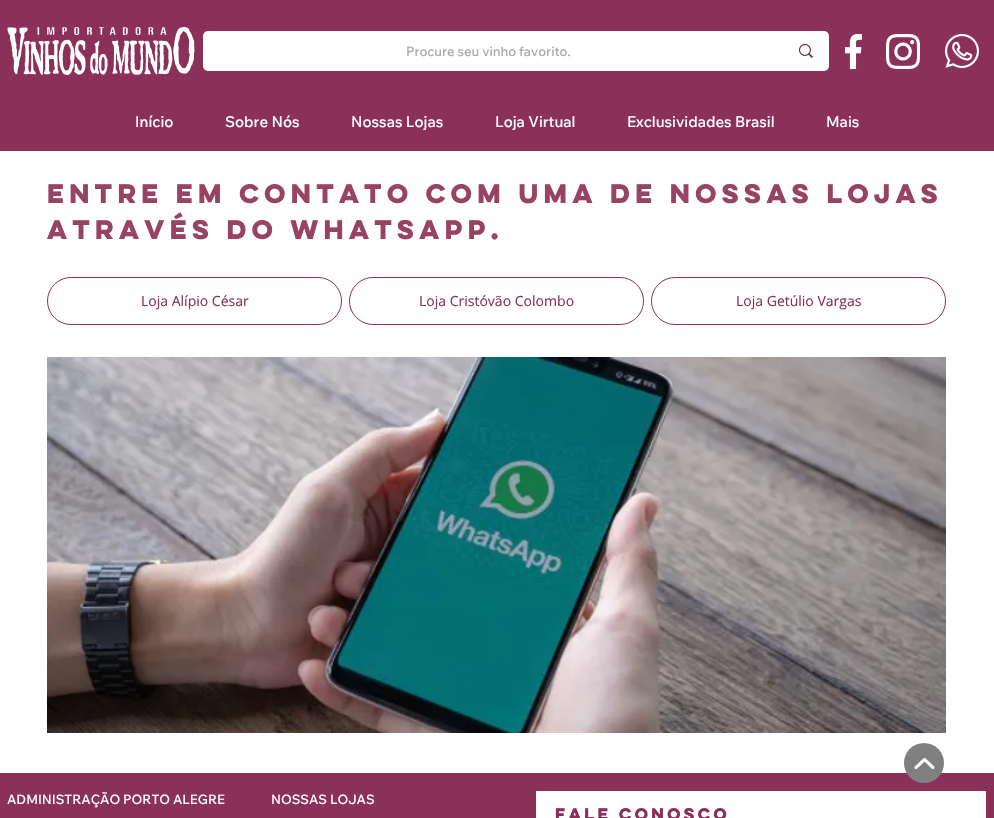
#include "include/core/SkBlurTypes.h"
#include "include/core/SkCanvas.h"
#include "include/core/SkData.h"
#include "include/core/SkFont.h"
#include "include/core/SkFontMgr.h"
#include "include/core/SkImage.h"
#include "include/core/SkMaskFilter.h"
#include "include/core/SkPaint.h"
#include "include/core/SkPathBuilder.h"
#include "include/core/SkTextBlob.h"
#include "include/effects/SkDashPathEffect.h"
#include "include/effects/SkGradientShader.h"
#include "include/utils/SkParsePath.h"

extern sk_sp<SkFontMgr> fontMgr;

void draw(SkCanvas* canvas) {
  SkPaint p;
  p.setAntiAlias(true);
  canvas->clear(SK_ColorWHITE);
  p.setColor(SkColorSetRGB(138, 48, 89));
  canvas->drawRect(SkRect::MakeLTRB(0, 0, 994, 151), p);
  canvas->drawImageRect(SkImages::DeferredFromEncodedData(SkData::MakeFromFileName("images/1.png")), SkRect::MakeLTRB(7, 27, 195, 75), SkSamplingOptions());
  p.setColor(SK_ColorWHITE);
  canvas->drawRoundRect(SkRect::MakeLTRB(203, 31, 829, 71), 5, 5, p);
  canvas->drawImageRect(SkImages::DeferredFromEncodedData(SkData::MakeFromFileName("images/2.png")), SkRect::MakeLTRB(799, 44, 813, 58), SkSamplingOptions());
  canvas->drawImageRect(SkImages::DeferredFromEncodedData(SkData::MakeFromFileName("images/3.png")), SkRect::MakeLTRB(845, 34, 862, 69), SkSamplingOptions());
  canvas->drawImageRect(SkImages::DeferredFromEncodedData(SkData::MakeFromFileName("images/4.png")), SkRect::MakeLTRB(886, 34, 920, 69), SkSamplingOptions());
  canvas->drawImageRect(SkImages::DeferredFromEncodedData(SkData::MakeFromFileName("images/5.png")), SkRect::MakeLTRB(945, 34, 979, 68), SkSamplingOptions());
  p.setStyle(SkPaint::kStroke_Style);
  p.setStrokeWidth(1);
  p.setColor(SkColorSetRGB(138, 48, 89));
  canvas->drawRoundRect(SkRect::MakeLTRB(47.5f, 277.5f, 341.5f, 324.5f), 23.5f, 23.5f, p);
  canvas->drawRoundRect(SkRect::MakeLTRB(349.5f, 277.5f, 643.5f, 324.5f), 23.5f, 23.5f, p);
  canvas->drawRoundRect(SkRect::MakeLTRB(651.5f, 277.5f, 945.5f, 324.5f), 23.5f, 23.5f, p);
  canvas->drawImageRect(SkImages::DeferredFromEncodedData(SkData::MakeFromFileName("images/6.png")), SkRect::MakeLTRB(47, 357, 946, 733), SkSamplingOptions());
  p.setStyle(SkPaint::kFill_Style);
  canvas->drawRect(SkRect::MakeLTRB(0, 773, 994, 818), p);
  p.setColor(SkColorSetRGB(128, 128, 128));
  canvas->drawCircle(924, 763, 20, p);
  canvas->drawImageRect(SkImages::DeferredFromEncodedData(SkData::MakeFromFileName("images/7.png")), SkRect::MakeLTRB(914, 758, 935, 769), SkSamplingOptions());
  p.setColor(SK_ColorWHITE);
  canvas->drawRect(SkRect::MakeLTRB(536, 791, 986, 818), p);
  SkFont font1(fontMgr->matchFamilyStyle("Wix Madefor Text", SkFontStyle(500, SkFontStyle::kNormal_Width, SkFontStyle::kUpright_Slant)), 13);
  font1.setSubpixel(true);
  p.setColor(SkColorSetRGB(170, 170, 170));
  canvas->drawString("Procure seu vinho favorito.", 406, 56, font1, p);
  SkFont font2(fontMgr->matchFamilyStyle("Wix Madefor Text", SkFontStyle(500, SkFontStyle::kNormal_Width, SkFontStyle::kUpright_Slant)), 15);
  font2.setSubpixel(true);
  p.setColor(SK_ColorWHITE);
  canvas->drawString("Início", 135, 127, font2, p);
  canvas->drawString("Sobre Nós", 225, 127, font2, p);
  canvas->drawString("Nossas Lojas", 351, 127, font2, p);
  canvas->drawString("Loja Virtual", 495, 127, font2, p);
  canvas->drawString("Exclusividades Brasil", 627, 127, font2, p);
  canvas->drawString("Mais", 826, 127, font2, p);
  SkFont font3(fontMgr->matchFamilyStyle("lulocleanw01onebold", SkFontStyle::Bold()), 24);
  font3.setSubpixel(true);
  p.setColor(SkColorSetRGB(153, 67, 100));
  canvas->drawString("Entre em contato com uma de nossas lojas", 47, 203, font3, p);
  canvas->drawString("através do whaTsapp.", 47, 239, font3, p);
  SkFont font4(fontMgr->matchFamilyStyle("Open Sans", SkFontStyle::Normal()), 14);
  font4.setSubpixel(true);
  p.setColor(SkColorSetRGB(138, 48, 89));
  canvas->drawString("Loja Alípio César", 141, 306, font4, p);
  canvas->drawString("Loja Cristóvão Colombo", 419, 306, font4, p);
  canvas->drawString("Loja Getúlio Vargas", 736, 306, font4, p);
  p.setColor(SK_ColorWHITE);
  canvas->drawString("ADMINISTRAÇÃO PORTO ALEGRE", 7, 804, font1, p);
  canvas->drawString("NOSSAS LOJAS", 271, 804, font1, p);
  SkFont font5(fontMgr->matchFamilyStyle("lulocleanw01onebold", SkFontStyle::Bold()), 15);
  font5.setSubpixel(true);
  p.setColor(SkColorSetRGB(138, 48, 89));
  canvas->drawString("Fale Conosco", 555, 820, font5, p);
}
